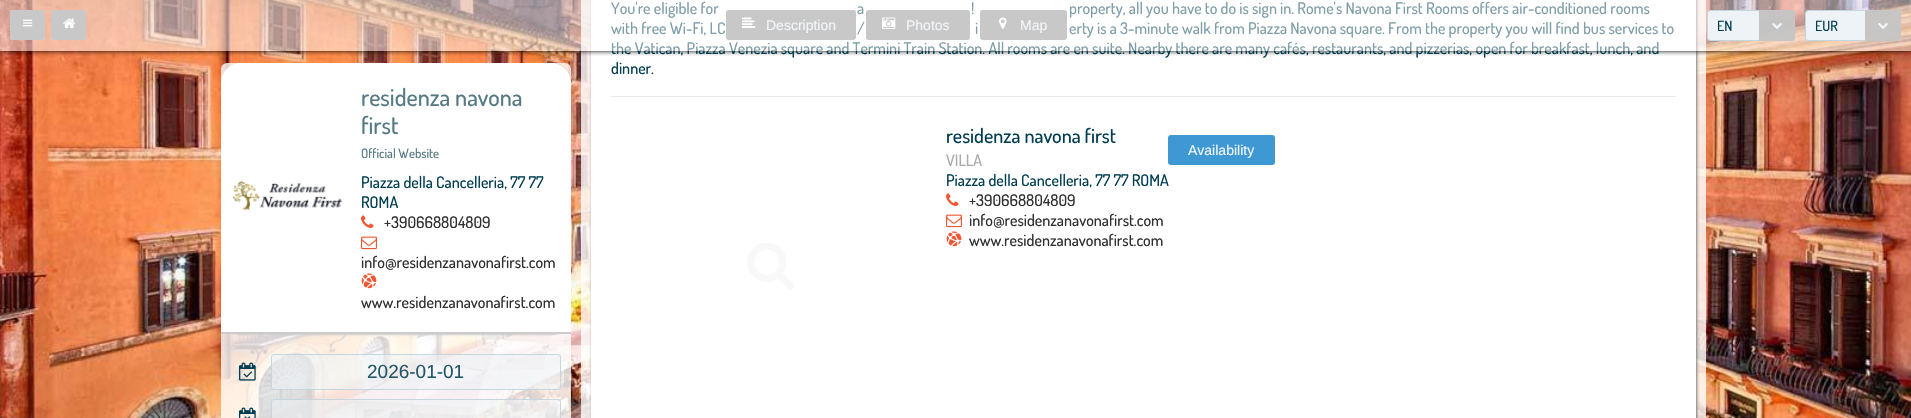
#include "include/core/SkBlurTypes.h"
#include "include/core/SkCanvas.h"
#include "include/core/SkData.h"
#include "include/core/SkFont.h"
#include "include/core/SkFontMgr.h"
#include "include/core/SkImage.h"
#include "include/core/SkMaskFilter.h"
#include "include/core/SkPaint.h"
#include "include/core/SkPathBuilder.h"
#include "include/core/SkTextBlob.h"
#include "include/effects/SkDashPathEffect.h"
#include "include/effects/SkGradientShader.h"
#include "include/utils/SkParsePath.h"

extern sk_sp<SkFontMgr> fontMgr;

void draw(SkCanvas* canvas) {
  SkPaint p;
  p.setAntiAlias(true);
  canvas->clear(SK_ColorWHITE);
  canvas->drawImageRect(SkImages::DeferredFromEncodedData(SkData::MakeFromFileName("images/1.png")), SkRect::MakeLTRB(0, 0, 1911, 418), SkSamplingOptions());
  p.setColor(SkColorSetARGB(204, 255, 255, 255));
  canvas->drawRect(SkRect::MakeLTRB(581, 0, 1706, 418), p);
  p.setColor(SkColorSetRGB(119, 119, 119));
  p.setMaskFilter(SkMaskFilter::MakeBlur(kNormal_SkBlurStyle, 1.5f));
  canvas->drawRoundRect(SkRect::MakeLTRB(592, -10, 1697, 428), 5, 5, p);
  p.setMaskFilter(nullptr);
  p.setColor(SK_ColorWHITE);
  canvas->drawRect(SkRect::MakeLTRB(591, 0, 1696, 418), p);
  p.setColor(SkColorSetRGB(234, 234, 234));
  canvas->drawRect(SkRect::MakeLTRB(611, 96, 1676, 97), p);
  canvas->drawImageRect(SkImages::DeferredFromEncodedData(SkData::MakeFromFileName("images/2.png")), SkRect::MakeLTRB(946, 193, 959, 206), SkSamplingOptions());
  canvas->drawImageRect(SkImages::DeferredFromEncodedData(SkData::MakeFromFileName("images/3.png")), SkRect::MakeLTRB(946, 214, 962, 228), SkSamplingOptions());
  canvas->drawImageRect(SkImages::DeferredFromEncodedData(SkData::MakeFromFileName("images/4.png")), SkRect::MakeLTRB(946, 231, 962, 247), SkSamplingOptions());
  p.setColor(SkColorSetRGB(62, 152, 211));
  canvas->drawRoundRect(SkRect::MakeLTRB(1168, 135, 1275, 165), 3, 3, p);
  canvas->drawImageRect(SkImages::DeferredFromEncodedData(SkData::MakeFromFileName("images/5.png")), SkRect::MakeLTRB(747, 243, 794, 289), SkSamplingOptions());
  canvas->save();
  canvas->clipRect(SkRect::MakeLTRB(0, 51, 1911, 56));
  p.setColor(SK_ColorBLACK);
  p.setMaskFilter(SkMaskFilter::MakeBlur(kNormal_SkBlurStyle, 2.5f));
  canvas->drawRect(SkRect::MakeLTRB(0, 0, 1911, 51), p);
  p.setMaskFilter(nullptr);
  canvas->restore();
  p.setColor(SkColorSetARGB(204, 255, 255, 255));
  canvas->drawRoundRect(SkRect::MakeLTRB(221, 63, 571, 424), 6, 6, p);
  canvas->save();
  canvas->clipPath(SkPathBuilder().moveTo(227, 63).lineTo(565, 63).cubicTo(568.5f, 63, 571, 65.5f, 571, 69).lineTo(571, 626).cubicTo(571, 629.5f, 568.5f, 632, 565, 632).lineTo(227, 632).cubicTo(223.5f, 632, 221, 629.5f, 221, 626).lineTo(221, 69).cubicTo(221, 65.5f, 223.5f, 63, 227, 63).close().detach(), true);
  p.setColor(SkColorSetRGB(204, 204, 204));
  p.setMaskFilter(SkMaskFilter::MakeBlur(kNormal_SkBlurStyle, 1));
  canvas->drawRoundRect(SkRect::MakeLTRB(222, 64, 572, 335), 20, 20, p);
  p.setMaskFilter(nullptr);
  canvas->restore();
  p.setColor(SK_ColorWHITE);
  canvas->drawPath(SkPathBuilder().moveTo(241, 63).lineTo(551, 63).cubicTo(562, 63, 571, 72, 571, 83).lineTo(571, 334).lineTo(221, 334).lineTo(221, 83).cubicTo(221, 72, 230, 63, 241, 63).close().detach(), p);
  p.setColor(SkColorSetRGB(204, 204, 204));
  canvas->drawRect(SkRect::MakeLTRB(221, 332, 571, 334), p);
  canvas->drawImageRect(SkImages::DeferredFromEncodedData(SkData::MakeFromFileName("images/13.png")), SkRect::MakeLTRB(232, 181, 343, 211), SkSamplingOptions());
  canvas->drawImageRect(SkImages::DeferredFromEncodedData(SkData::MakeFromFileName("images/2.png")), SkRect::MakeLTRB(361, 215, 374, 228), SkSamplingOptions());
  canvas->drawImageRect(SkImages::DeferredFromEncodedData(SkData::MakeFromFileName("images/3.png")), SkRect::MakeLTRB(361, 236, 377, 250), SkSamplingOptions());
  canvas->drawImageRect(SkImages::DeferredFromEncodedData(SkData::MakeFromFileName("images/4.png")), SkRect::MakeLTRB(361, 273, 377, 289), SkSamplingOptions());
  canvas->drawImageRect(SkImages::DeferredFromEncodedData(SkData::MakeFromFileName("images/14.png")), SkRect::MakeLTRB(239, 362, 256, 381), SkSamplingOptions());
  p.setColor(SkColorSetARGB(145, 237, 243, 246));
  canvas->drawRoundRect(SkRect::MakeLTRB(271.5f, 354.5f, 560.5f, 389.5f), 2.5f, 2.5f, p);
  p.setStyle(SkPaint::kStroke_Style);
  p.setStrokeWidth(1);
  p.setColor(SkColorSetRGB(198, 214, 223));
  canvas->drawRoundRect(SkRect::MakeLTRB(271.5f, 354.5f, 560.5f, 389.5f), 2.5f, 2.5f, p);
  canvas->drawImageRect(SkImages::DeferredFromEncodedData(SkData::MakeFromFileName("images/15.png")), SkRect::MakeLTRB(239, 407, 256, 418), SkSamplingOptions());
  p.setStyle(SkPaint::kFill_Style);
  p.setColor(SkColorSetARGB(145, 237, 243, 246));
  canvas->drawRoundRect(SkRect::MakeLTRB(271.5f, 399.5f, 560.5f, 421.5f), 2.5f, 2.5f, p);
  p.setStyle(SkPaint::kStroke_Style);
  p.setColor(SkColorSetRGB(198, 214, 223));
  canvas->drawRoundRect(SkRect::MakeLTRB(271.5f, 399.5f, 560.5f, 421.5f), 2.5f, 2.5f, p);
  SkFont font1(fontMgr->matchFamilyStyle("Dosis", SkFontStyle(500, SkFontStyle::kNormal_Width, SkFontStyle::kUpright_Slant)), 16);
  font1.setSubpixel(true);
  p.setStyle(SkPaint::kFill_Style);
  p.setColor(SkColorSetRGB(0, 61, 80));
  canvas->drawString("You're eligible for", 611, 14, font1, p);
  canvas->drawString("a", 857, 14, font1, p);
  canvas->drawString("!", 971, 14, font1, p);
  canvas->drawString("property, all you have to do is sign in. Rome's Navona First Rooms offers air-conditioned rooms", 1069, 14, font1, p);
  canvas->drawString("with free Wi-Fi, LC", 611, 34, font1, p);
  canvas->drawString("/", 857, 34, font1, p);
  canvas->drawString("i", 975, 34, font1, p);
  canvas->drawString("erty is a 3-minute walk from Piazza Navona square. From the property you will find bus services to", 1069, 34, font1, p);
  canvas->drawString("the Vatican, Piazza Venezia square and Termini Train Station. All rooms are en suite. Nearby there are many cafés, restaurants, and pizzerias, open for breakfast, lunch, and", 611, 54, font1, p);
  canvas->drawString("dinner.", 611, 74, font1, p);
  SkFont font2(fontMgr->matchFamilyStyle("Dosis", SkFontStyle(500, SkFontStyle::kNormal_Width, SkFontStyle::kUpright_Slant)), 20);
  font2.setSubpixel(true);
  canvas->drawString("residenza navona first", 946, 143, font2, p);
  p.setColor(SkColorSetRGB(170, 170, 170));
  canvas->drawString("VILLA", 946, 166, font1, p);
  p.setColor(SkColorSetRGB(0, 61, 80));
  canvas->drawString("Piazza della Cancelleria, 77 77 ROMA", 946, 186, font1, p);
  p.setColor(SkColorSetRGB(47, 47, 47));
  canvas->drawString("+390668804809", 969, 206, font1, p);
  canvas->drawString("info@residenzanavonafirst.com", 969, 226, font1, p);
  canvas->drawString("www.residenzanavonafirst.com", 969, 246, font1, p);
  SkFont font3(fontMgr->matchFamilyStyle("Liberation Sans", SkFontStyle::Normal()), 14);
  font3.setSubpixel(true);
  p.setColor(SkColorSetRGB(241, 246, 249));
  canvas->drawString("Availability", 1188, 155, font3, p);
  p.setColor(SkColorSetARGB(128, 255, 255, 255));
  canvas->drawRect(SkRect::MakeLTRB(0, 0, 1911, 51), p);
  p.setColor(SkColorSetRGB(239, 239, 239));
  canvas->drawRoundRect(SkRect::MakeLTRB(10, 10, 45, 40), 3, 3, p);
  p.setColor(SkColorSetARGB(242, 197, 197, 197));
  canvas->drawRoundRect(SkRect::MakeLTRB(10, 10, 45, 40), 3, 3, p);
  canvas->drawImageRect(SkImages::DeferredFromEncodedData(SkData::MakeFromFileName("images/6.png")), SkRect::MakeLTRB(23, 19, 33, 27), SkSamplingOptions());
  p.setColor(SkColorSetRGB(239, 239, 239));
  canvas->drawRoundRect(SkRect::MakeLTRB(51, 10, 86, 40), 3, 3, p);
  p.setColor(SkColorSetARGB(242, 197, 197, 197));
  canvas->drawRoundRect(SkRect::MakeLTRB(51, 10, 86, 40), 3, 3, p);
  canvas->drawImageRect(SkImages::DeferredFromEncodedData(SkData::MakeFromFileName("images/7.png")), SkRect::MakeLTRB(63, 18, 75, 28), SkSamplingOptions());
  p.setColor(SkColorSetRGB(239, 239, 239));
  canvas->drawRoundRect(SkRect::MakeLTRB(726, 10, 856, 40), 3, 3, p);
  p.setColor(SkColorSetARGB(242, 197, 197, 197));
  canvas->drawRoundRect(SkRect::MakeLTRB(726, 10, 856, 40), 3, 3, p);
  canvas->drawImageRect(SkImages::DeferredFromEncodedData(SkData::MakeFromFileName("images/8.png")), SkRect::MakeLTRB(742, 17, 756, 28), SkSamplingOptions());
  p.setColor(SkColorSetRGB(241, 246, 249));
  canvas->drawString("Description", 766, 30, font3, p);
  p.setColor(SkColorSetRGB(239, 239, 239));
  canvas->drawRoundRect(SkRect::MakeLTRB(866, 10, 970, 40), 3, 3, p);
  p.setColor(SkColorSetARGB(242, 197, 197, 197));
  canvas->drawRoundRect(SkRect::MakeLTRB(866, 10, 970, 40), 3, 3, p);
  canvas->drawImageRect(SkImages::DeferredFromEncodedData(SkData::MakeFromFileName("images/9.png")), SkRect::MakeLTRB(882, 17, 896, 29), SkSamplingOptions());
  p.setColor(SkColorSetRGB(241, 246, 249));
  canvas->drawString("Photos", 906, 30, font3, p);
  p.setColor(SkColorSetRGB(239, 239, 239));
  canvas->drawRoundRect(SkRect::MakeLTRB(980, 10, 1067, 40), 3, 3, p);
  p.setColor(SkColorSetARGB(242, 197, 197, 197));
  canvas->drawRoundRect(SkRect::MakeLTRB(980, 10, 1067, 40), 3, 3, p);
  canvas->drawImageRect(SkImages::DeferredFromEncodedData(SkData::MakeFromFileName("images/10.png")), SkRect::MakeLTRB(999, 17, 1007, 29), SkSamplingOptions());
  p.setColor(SkColorSetRGB(241, 246, 249));
  canvas->drawString("Map", 1020, 30, font3, p);
  p.setStyle(SkPaint::kStroke_Style);
  p.setColor(SkColorSetRGB(198, 214, 223));
  canvas->drawRoundRect(SkRect::MakeLTRB(1707.5f, 10.5f, 1794.5f, 40.5f), 2.5f, 2.5f, p);
  p.setStyle(SkPaint::kFill_Style);
  p.setColor(SkColorSetRGB(237, 243, 246));
  canvas->drawPath(SkPathBuilder().moveTo(1710, 11).lineTo(1759, 11).lineTo(1759, 40).lineTo(1710, 40).cubicTo(1709, 40, 1708, 39, 1708, 38).lineTo(1708, 13).cubicTo(1708, 12, 1709, 11, 1710, 11).close().detach(), p);
  SkFont font4(fontMgr->matchFamilyStyle("Dosis", SkFontStyle(500, SkFontStyle::kNormal_Width, SkFontStyle::kUpright_Slant)), 14);
  font4.setSubpixel(true);
  p.setColor(SkColorSetRGB(0, 61, 80));
  canvas->drawString("EN", 1717, 31, font4, p);
  p.setColor(SkColorSetARGB(242, 197, 197, 197));
  canvas->drawPath(SkPathBuilder().moveTo(1759, 10).lineTo(1792, 10).cubicTo(1793.5f, 10, 1795, 11.5f, 1795, 13).lineTo(1795, 38).cubicTo(1795, 39.5f, 1793.5f, 41, 1792, 41).lineTo(1759, 41).close().detach(), p);
  canvas->drawImageRect(SkImages::DeferredFromEncodedData(SkData::MakeFromFileName("images/11.png")), SkRect::MakeLTRB(1772, 23, 1782, 29), SkSamplingOptions());
  p.setStyle(SkPaint::kStroke_Style);
  p.setColor(SkColorSetRGB(198, 214, 223));
  canvas->drawRoundRect(SkRect::MakeLTRB(1805.5f, 10.5f, 1900.5f, 40.5f), 2.5f, 2.5f, p);
  p.setStyle(SkPaint::kFill_Style);
  p.setColor(SkColorSetRGB(237, 243, 246));
  canvas->drawPath(SkPathBuilder().moveTo(1808, 11).lineTo(1865, 11).lineTo(1865, 40).lineTo(1808, 40).cubicTo(1807, 40, 1806, 39, 1806, 38).lineTo(1806, 13).cubicTo(1806, 12, 1807, 11, 1808, 11).close().detach(), p);
  p.setColor(SkColorSetRGB(0, 61, 80));
  canvas->drawString("EUR", 1815, 31, font4, p);
  p.setColor(SkColorSetARGB(242, 197, 197, 197));
  canvas->drawPath(SkPathBuilder().moveTo(1865, 10).lineTo(1898, 10).cubicTo(1899.5f, 10, 1901, 11.5f, 1901, 13).lineTo(1901, 38).cubicTo(1901, 39.5f, 1899.5f, 41, 1898, 41).lineTo(1865, 41).close().detach(), p);
  canvas->drawImageRect(SkImages::DeferredFromEncodedData(SkData::MakeFromFileName("images/12.png")), SkRect::MakeLTRB(1878, 23, 1888, 29), SkSamplingOptions());
  SkFont font5(fontMgr->matchFamilyStyle("Dosis", SkFontStyle(500, SkFontStyle::kNormal_Width, SkFontStyle::kUpright_Slant)), 24);
  font5.setSubpixel(true);
  p.setColor(SkColorSetRGB(86, 122, 132));
  canvas->drawString("residenza navona", 361, 106, font5, p);
  canvas->drawString("first", 361, 134, font5, p);
  SkFont font6(fontMgr->matchFamilyStyle("Dosis", SkFontStyle(500, SkFontStyle::kNormal_Width, SkFontStyle::kUpright_Slant)), 13);
  font6.setSubpixel(true);
  canvas->drawString("Official Website", 361, 158, font6, p);
  p.setColor(SkColorSetRGB(0, 61, 80));
  canvas->drawString("Piazza della Cancelleria, 77 77", 361, 188, font1, p);
  canvas->drawString("ROMA", 361, 208, font1, p);
  p.setColor(SkColorSetRGB(47, 47, 47));
  canvas->drawString("+390668804809", 384, 228, font1, p);
  canvas->drawString("info@residenzanavonafirst.com", 361, 268, font1, p);
  canvas->drawString("www.residenzanavonafirst.com", 361, 308, font1, p);
  SkFont font7(fontMgr->matchFamilyStyle("Liberation Sans", SkFontStyle::Normal()), 19);
  font7.setSubpixel(true);
  p.setColor(SkColorSetRGB(34, 86, 103));
  canvas->drawString("2026-01-01", 367, 378, font7, p);
}
